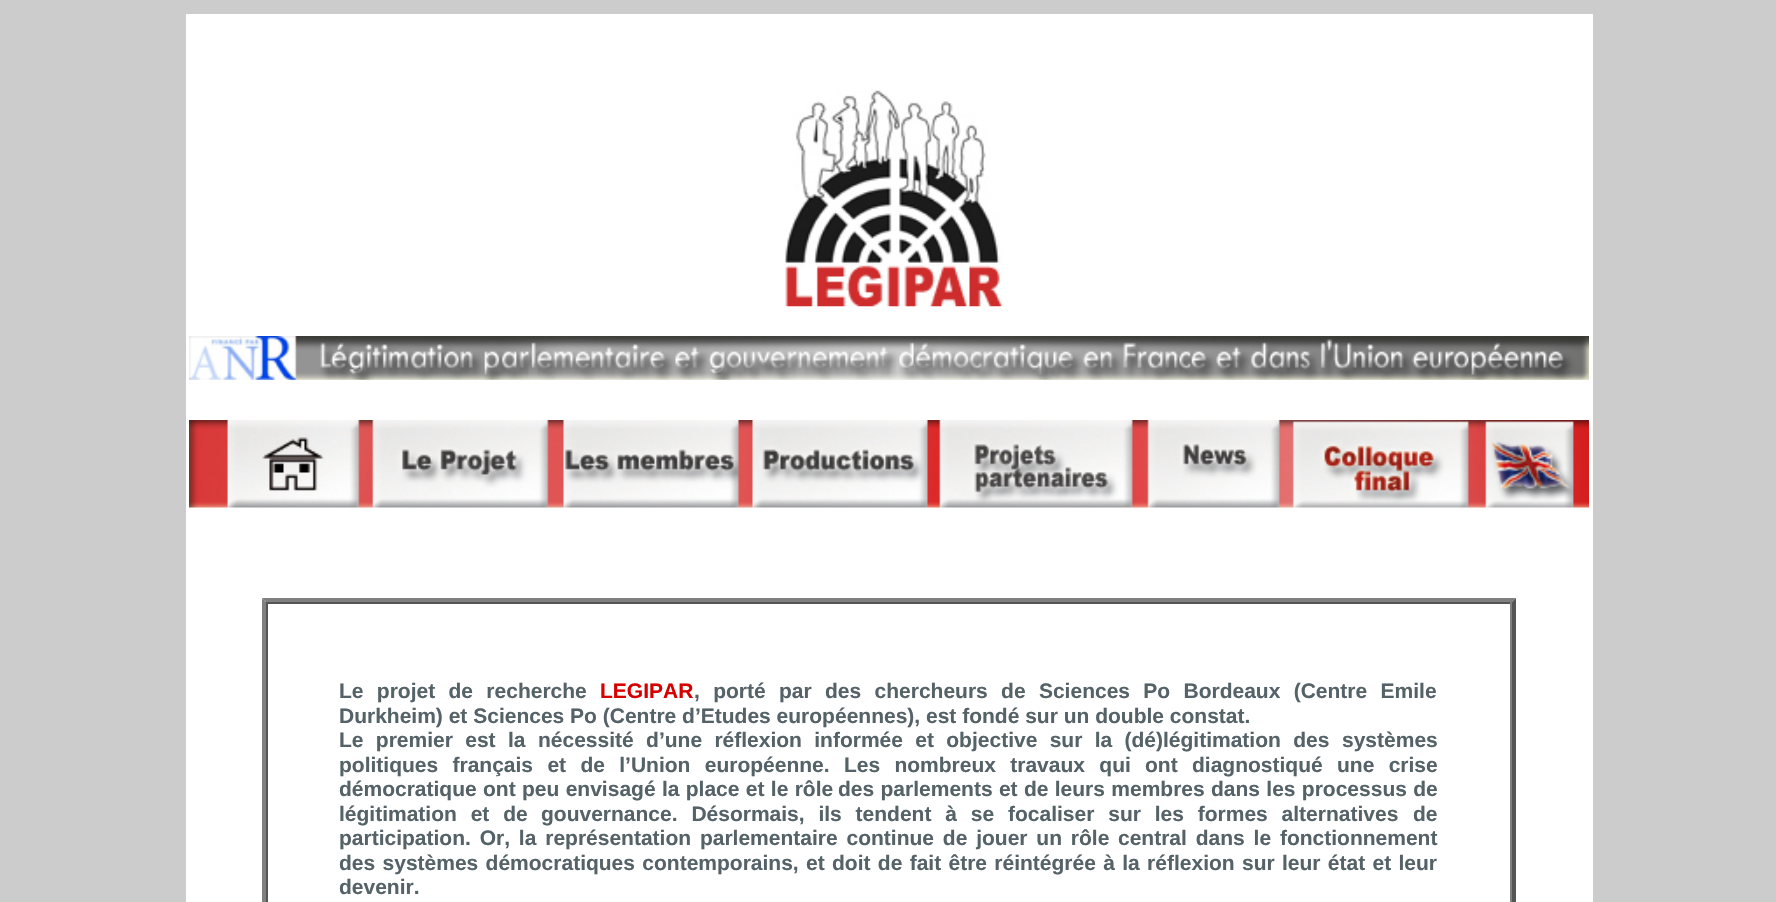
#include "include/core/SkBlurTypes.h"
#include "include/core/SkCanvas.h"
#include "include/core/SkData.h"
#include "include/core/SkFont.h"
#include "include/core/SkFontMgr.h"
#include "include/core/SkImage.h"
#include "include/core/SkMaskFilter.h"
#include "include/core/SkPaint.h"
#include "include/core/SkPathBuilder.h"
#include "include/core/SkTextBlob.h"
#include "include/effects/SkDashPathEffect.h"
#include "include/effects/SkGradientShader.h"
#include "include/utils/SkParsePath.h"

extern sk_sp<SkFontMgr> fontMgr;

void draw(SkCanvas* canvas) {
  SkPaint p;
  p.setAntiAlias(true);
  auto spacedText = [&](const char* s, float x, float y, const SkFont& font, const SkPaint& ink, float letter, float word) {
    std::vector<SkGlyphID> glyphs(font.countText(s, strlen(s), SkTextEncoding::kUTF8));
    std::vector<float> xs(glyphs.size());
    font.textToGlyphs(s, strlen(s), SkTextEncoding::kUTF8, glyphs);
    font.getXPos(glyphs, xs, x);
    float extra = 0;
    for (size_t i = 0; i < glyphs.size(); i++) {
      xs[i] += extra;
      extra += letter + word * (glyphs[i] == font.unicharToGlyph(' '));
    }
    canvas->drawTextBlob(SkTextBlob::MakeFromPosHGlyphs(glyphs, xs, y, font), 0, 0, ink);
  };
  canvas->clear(SkColorSetRGB(204, 204, 204));
  p.setColor(SK_ColorWHITE);
  canvas->drawRect(SkRect::MakeLTRB(186, 14, 1593, 902), p);
  canvas->drawImageRect(SkImages::DeferredFromEncodedData(SkData::MakeFromFileName("images/1.png")), SkRect::MakeLTRB(785, 90, 1003, 307), SkSamplingOptions());
  canvas->drawImageRect(SkImages::DeferredFromEncodedData(SkData::MakeFromFileName("images/2.png")), SkRect::MakeLTRB(189, 336, 1589, 380), SkSamplingOptions());
  canvas->drawImageRect(SkImages::DeferredFromEncodedData(SkData::MakeFromFileName("images/3.png")), SkRect::MakeLTRB(189, 420, 1589, 508), SkSamplingOptions());
  p.setColor(SkColorSetRGB(128, 128, 128));
  canvas->drawPath(SkPathBuilder().moveTo(262, 598).lineTo(1516, 598).lineTo(1512, 602).lineTo(266, 602).close().detach(), p);
  p.setColor(SkColorSetRGB(85, 85, 85));
  canvas->drawPath(SkPathBuilder().moveTo(1516, 598).lineTo(1516, 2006).lineTo(1512, 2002).lineTo(1512, 602).close().detach(), p);
  p.setColor(SkColorSetRGB(128, 128, 128));
  canvas->drawPath(SkPathBuilder().moveTo(262, 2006).lineTo(262, 598).lineTo(266, 602).lineTo(266, 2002).close().detach(), p);
  p.setColor(SkColorSetRGB(85, 85, 85));
  canvas->drawRect(SkRect::MakeLTRB(266, 602, 1512, 604), p);
  p.setColor(SkColorSetRGB(128, 128, 128));
  canvas->drawRect(SkRect::MakeLTRB(1510, 602, 1512, 902), p);
  p.setColor(SkColorSetRGB(85, 85, 85));
  canvas->drawRect(SkRect::MakeLTRB(266, 602, 268, 902), p);
  SkFont font1(fontMgr->matchFamilyStyle("Liberation Sans", SkFontStyle::Bold()), 21);
  font1.setSubpixel(true);
  p.setColor(SkColorSetRGB(85, 98, 104));
  spacedText("Le projet de recherche", 339, 698, font1, p, 0, 7.5f);
  p.setColor(SkColorSetRGB(214, 0, 0));
  canvas->drawString("LEGIPAR", 600, 698, font1, p);
  p.setColor(SkColorSetRGB(85, 98, 104));
  spacedText(", porté par des chercheurs de Sciences Po Bordeaux (Centre Emile", 694, 698, font1, p, 0, 7.5f);
  canvas->drawString("Durkheim) et Sciences Po (Centre d’Etudes européennes), est fondé sur un double constat.", 339, 723, font1, p);
  spacedText("Le premier est la", 339, 747, font1, p, 0, 6.5f);
  spacedText("nécessité d’une réflexion informée et objective sur la (dé)légitimation des", 538, 747, font1, p, 0, 6.5f);
  canvas->drawString("systèmes", 1342, 747, font1, p);
  spacedText("politiques français et de l’Union européenne. Les nombreux travaux qui", 339, 772, font1, p, 0, 8.5f);
  spacedText("ont diagnostiqué une crise", 1145, 772, font1, p, 0, 8.5f);
  spacedText("démocratique ont peu envisagé la place et le rôle", 339, 796, font1, p, 0, 0.5f);
  spacedText("des parlements et de leurs membres dans les processus de", 838, 796, font1, p, 0, 0.5f);
  spacedText("légitimation et de", 339, 821, font1, p, 0, 8);
  spacedText("gouvernance. Désormais, ils tendent à se focaliser sur les formes alternatives", 541, 821, font1, p, 0, 8);
  canvas->drawString("de", 1413, 821, font1, p);
  spacedText("participation. Or, la représentation parlementaire continue de jouer un rôle", 339, 845, font1, p, 0, 3);
  spacedText("central dans le fonctionnement", 1118, 845, font1, p, 0, 3);
  spacedText("des systèmes démocratiques contemporains, et", 339, 870, font1, p, 0, 1.5f);
  spacedText("doit de fait être réintégrée à la réflexion sur leur état et leur", 832, 870, font1, p, 0, 1.5f);
  canvas->drawString("devenir.", 339, 894, font1, p);
}
